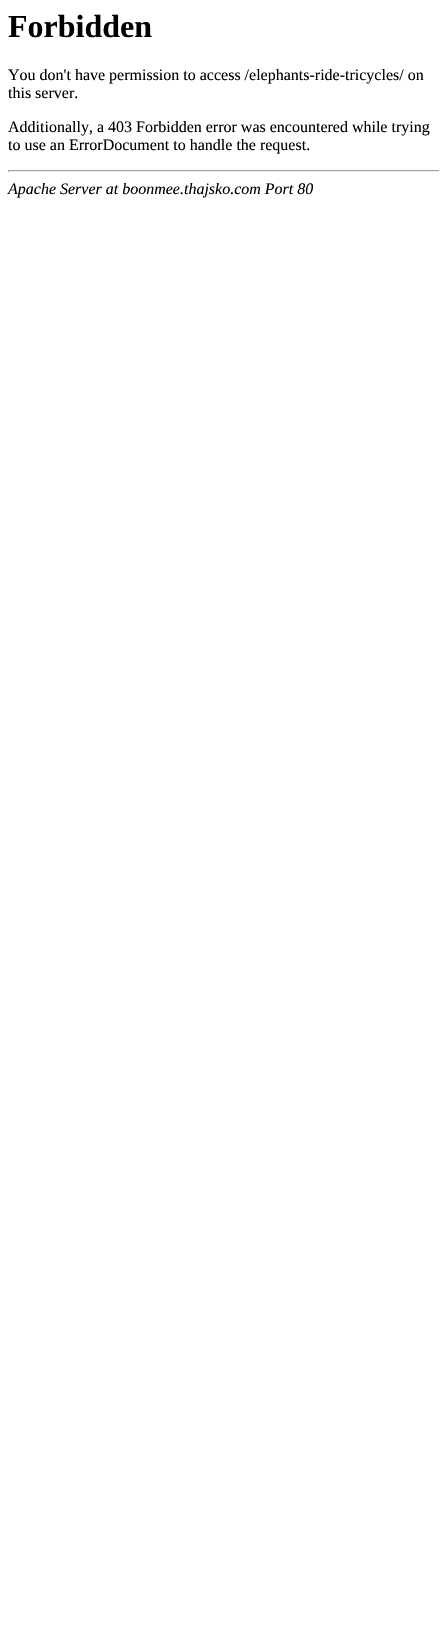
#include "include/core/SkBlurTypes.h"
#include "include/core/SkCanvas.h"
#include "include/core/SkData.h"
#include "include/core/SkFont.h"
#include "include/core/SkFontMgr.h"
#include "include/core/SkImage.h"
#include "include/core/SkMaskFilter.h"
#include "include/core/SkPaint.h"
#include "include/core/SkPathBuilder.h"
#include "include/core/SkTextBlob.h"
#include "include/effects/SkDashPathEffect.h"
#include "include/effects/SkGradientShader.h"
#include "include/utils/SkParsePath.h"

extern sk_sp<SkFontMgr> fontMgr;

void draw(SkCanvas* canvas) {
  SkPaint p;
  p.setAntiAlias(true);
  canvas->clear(SK_ColorWHITE);
  p.setColor(SkColorSetRGB(159, 159, 159));
  canvas->drawRect(SkRect::MakeLTRB(8, 170, 440, 171), p);
  p.setColor(SkColorSetRGB(238, 238, 238));
  canvas->drawRect(SkRect::MakeLTRB(439, 170, 440, 172), p);
  canvas->drawRect(SkRect::MakeLTRB(8, 171, 440, 172), p);
  p.setColor(SkColorSetRGB(159, 159, 159));
  canvas->drawRect(SkRect::MakeLTRB(8, 170, 9, 172), p);
  SkFont font1(fontMgr->matchFamilyStyle("Liberation Serif", SkFontStyle::Bold()), 32);
  font1.setSubpixel(true);
  p.setColor(SK_ColorBLACK);
  canvas->drawString("Forbidden", 8, 37, font1, p);
  SkFont font2(fontMgr->matchFamilyStyle("Liberation Serif", SkFontStyle::Normal()), 16);
  font2.setSubpixel(true);
  canvas->drawString("You don't have permission to access /elephants-ride-tricycles/ on", 8, 80, font2, p);
  canvas->drawString("this server.", 8, 98, font2, p);
  canvas->drawString("Additionally, a 403 Forbidden error was encountered while trying", 8, 132, font2, p);
  canvas->drawString("to use an ErrorDocument to handle the request.", 8, 150, font2, p);
  SkFont font3(fontMgr->matchFamilyStyle("Liberation Serif", SkFontStyle::Italic()), 16);
  font3.setSubpixel(true);
  canvas->drawString("Apache Server at boonmee.thajsko.com Port 80", 8, 194, font3, p);
}
